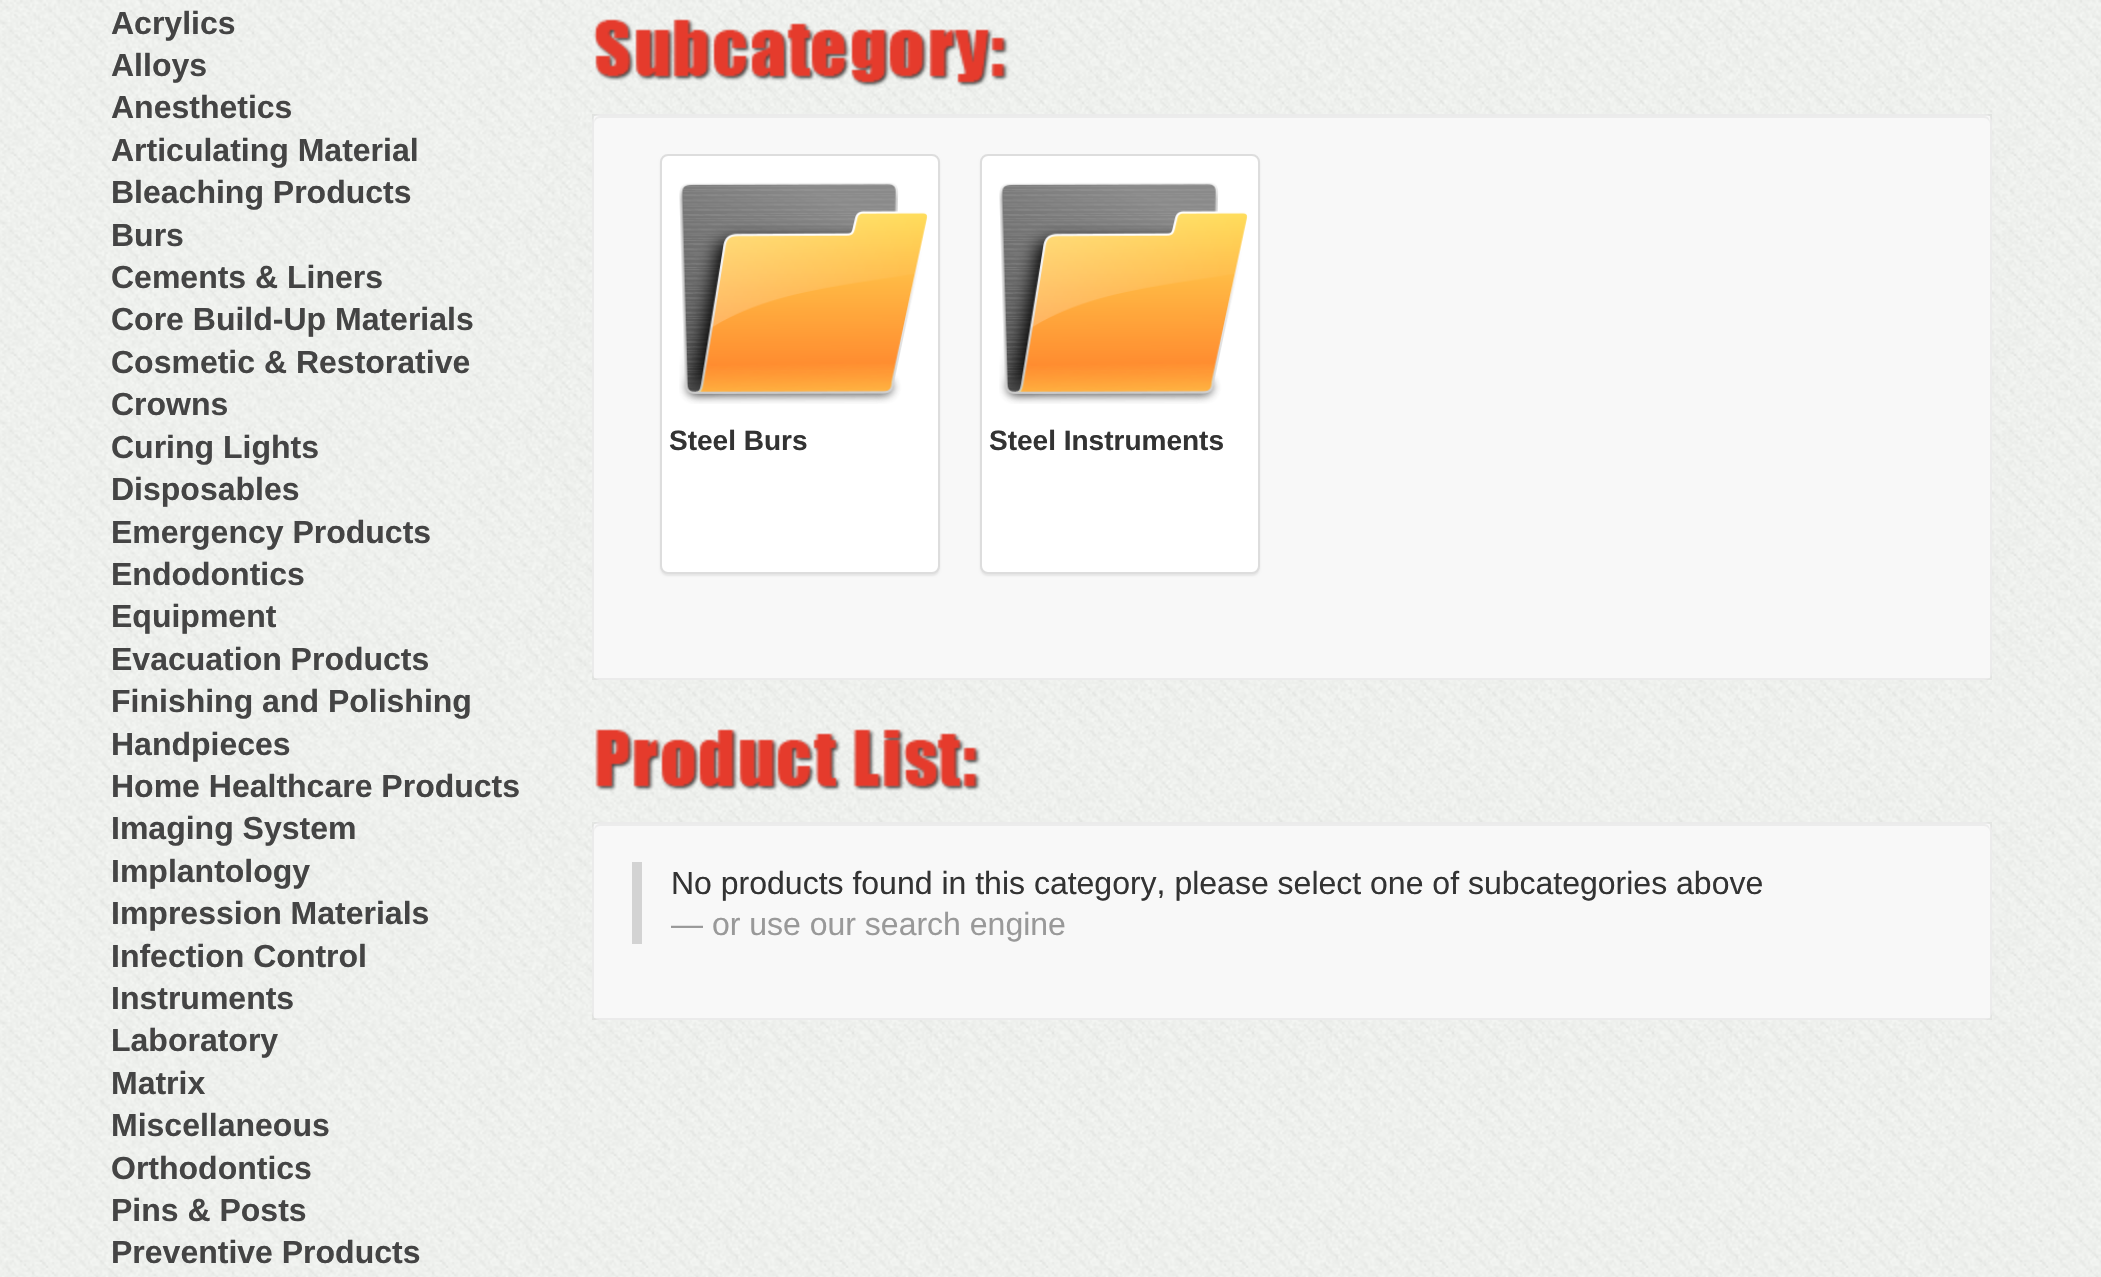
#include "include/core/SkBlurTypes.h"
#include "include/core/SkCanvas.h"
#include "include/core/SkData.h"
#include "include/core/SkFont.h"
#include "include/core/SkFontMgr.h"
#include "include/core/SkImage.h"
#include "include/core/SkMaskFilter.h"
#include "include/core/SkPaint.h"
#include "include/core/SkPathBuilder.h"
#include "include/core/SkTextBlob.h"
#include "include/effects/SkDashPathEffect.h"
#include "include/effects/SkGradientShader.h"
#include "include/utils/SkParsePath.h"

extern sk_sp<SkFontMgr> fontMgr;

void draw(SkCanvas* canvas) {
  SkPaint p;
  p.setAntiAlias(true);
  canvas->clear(SK_ColorWHITE);
  canvas->drawImageRect(SkImages::DeferredFromEncodedData(SkData::MakeFromFileName("images/1.png")), SkRect::MakeLTRB(0, 0, 2101, 1277), SkSamplingOptions());
  canvas->drawImageRect(SkImages::DeferredFromEncodedData(SkData::MakeFromFileName("images/2.png")), SkRect::MakeLTRB(593, 19, 1009, 87), SkSamplingOptions());
  p.setColor(SkColorSetRGB(248, 248, 248));
  canvas->drawRoundRect(SkRect::MakeLTRB(592, 114, 1992, 680), 8, 8, p);
  p.setColor(SkColorSetRGB(236, 236, 236));
  canvas->drawPath(SkPathBuilder().moveTo(600, 118).lineTo(1984, 118).cubicTo(1987, 118, 1990, 121, 1990, 124).cubicTo(1990, 120, 1989, 116, 1984, 116).lineTo(600, 116).cubicTo(595, 116, 594, 120, 594, 124).cubicTo(594, 121, 597, 118, 600, 118).close().detach(), p);
  p.setStyle(SkPaint::kStroke_Style);
  p.setStrokeWidth(2);
  p.setColor(SkColorSetARGB(13, 0, 0, 0));
  canvas->drawRect(SkRect::MakeLTRB(593, 115, 1991, 679), p);
  p.setStyle(SkPaint::kFill_Style);
  p.setColor(SkColorSetARGB(18, 0, 0, 0));
  p.setMaskFilter(SkMaskFilter::MakeBlur(kNormal_SkBlurStyle, 1));
  canvas->drawRoundRect(SkRect::MakeLTRB(660, 156, 940, 576), 8, 8, p);
  p.setMaskFilter(nullptr);
  p.setColor(SK_ColorWHITE);
  canvas->drawRoundRect(SkRect::MakeLTRB(661, 155, 939, 573), 7, 7, p);
  p.setStyle(SkPaint::kStroke_Style);
  p.setColor(SkColorSetRGB(221, 221, 221));
  canvas->drawRoundRect(SkRect::MakeLTRB(661, 155, 939, 573), 7, 7, p);
  canvas->drawImageRect(SkImages::DeferredFromEncodedData(SkData::MakeFromFileName("images/3.png")), SkRect::MakeLTRB(679, 182, 928, 404), SkSamplingOptions());
  p.setStyle(SkPaint::kFill_Style);
  p.setColor(SkColorSetARGB(18, 0, 0, 0));
  p.setMaskFilter(SkMaskFilter::MakeBlur(kNormal_SkBlurStyle, 1));
  canvas->drawRoundRect(SkRect::MakeLTRB(980, 156, 1260, 576), 8, 8, p);
  p.setMaskFilter(nullptr);
  p.setColor(SK_ColorWHITE);
  canvas->drawRoundRect(SkRect::MakeLTRB(981, 155, 1259, 573), 7, 7, p);
  p.setStyle(SkPaint::kStroke_Style);
  p.setColor(SkColorSetRGB(221, 221, 221));
  canvas->drawRoundRect(SkRect::MakeLTRB(981, 155, 1259, 573), 7, 7, p);
  canvas->drawImageRect(SkImages::DeferredFromEncodedData(SkData::MakeFromFileName("images/4.png")), SkRect::MakeLTRB(999, 182, 1248, 404), SkSamplingOptions());
  canvas->drawImageRect(SkImages::DeferredFromEncodedData(SkData::MakeFromFileName("images/5.png")), SkRect::MakeLTRB(595, 729, 981, 791), SkSamplingOptions());
  p.setStyle(SkPaint::kFill_Style);
  p.setColor(SkColorSetRGB(248, 248, 248));
  canvas->drawRoundRect(SkRect::MakeLTRB(592, 822, 1992, 1020), 8, 8, p);
  p.setColor(SkColorSetRGB(236, 236, 236));
  canvas->drawPath(SkPathBuilder().moveTo(600, 826).lineTo(1984, 826).cubicTo(1987, 826, 1990, 829, 1990, 832).cubicTo(1990, 828, 1989, 824, 1984, 824).lineTo(600, 824).cubicTo(595, 824, 594, 828, 594, 832).cubicTo(594, 829, 597, 826, 600, 826).close().detach(), p);
  p.setStyle(SkPaint::kStroke_Style);
  p.setColor(SkColorSetARGB(13, 0, 0, 0));
  canvas->drawRect(SkRect::MakeLTRB(593, 823, 1991, 1019), p);
  p.setStyle(SkPaint::kFill_Style);
  p.setColor(SkColorSetRGB(211, 211, 211));
  canvas->drawRect(SkRect::MakeLTRB(632, 862, 642, 944), p);
  SkFont font1(fontMgr->matchFamilyStyle("Liberation Sans", SkFontStyle::Bold()), 32);
  font1.setSubpixel(true);
  p.setColor(SkColorSetRGB(68, 68, 68));
  canvas->drawString("Acrylics", 111, 34, font1, p);
  canvas->drawString("Alloys", 111, 76, font1, p);
  canvas->drawString("Anesthetics", 111, 118, font1, p);
  canvas->drawString("Articulating Material", 111, 161, font1, p);
  canvas->drawString("Bleaching Products", 111, 203, font1, p);
  canvas->drawString("Burs", 111, 246, font1, p);
  canvas->drawString("Cements & Liners", 111, 288, font1, p);
  canvas->drawString("Core Build-Up Materials", 111, 330, font1, p);
  canvas->drawString("Cosmetic & Restorative", 111, 373, font1, p);
  canvas->drawString("Crowns", 111, 415, font1, p);
  canvas->drawString("Curing Lights", 111, 458, font1, p);
  canvas->drawString("Disposables", 111, 500, font1, p);
  canvas->drawString("Emergency Products", 111, 543, font1, p);
  canvas->drawString("Endodontics", 111, 585, font1, p);
  canvas->drawString("Equipment", 111, 627, font1, p);
  canvas->drawString("Evacuation Products", 111, 670, font1, p);
  canvas->drawString("Finishing and Polishing", 111, 712, font1, p);
  canvas->drawString("Handpieces", 111, 755, font1, p);
  canvas->drawString("Home Healthcare Products", 111, 797, font1, p);
  canvas->drawString("Imaging System", 111, 839, font1, p);
  canvas->drawString("Implantology", 111, 882, font1, p);
  canvas->drawString("Impression Materials", 111, 924, font1, p);
  canvas->drawString("Infection Control", 111, 967, font1, p);
  canvas->drawString("Instruments", 111, 1009, font1, p);
  canvas->drawString("Laboratory", 111, 1051, font1, p);
  canvas->drawString("Matrix", 111, 1094, font1, p);
  canvas->drawString("Miscellaneous", 111, 1136, font1, p);
  canvas->drawString("Orthodontics", 111, 1179, font1, p);
  canvas->drawString("Pins & Posts", 111, 1221, font1, p);
  canvas->drawString("Preventive Products", 111, 1263, font1, p);
  SkFont font2(fontMgr->matchFamilyStyle("Liberation Sans", SkFontStyle::Bold()), 28);
  font2.setSubpixel(true);
  p.setColor(SkColorSetRGB(51, 51, 51));
  canvas->drawString("Steel Burs", 669, 450, font2, p);
  canvas->drawString("Steel Instruments", 989, 450, font2, p);
  SkFont font3(fontMgr->matchFamilyStyle("Liberation Sans", SkFontStyle::Normal()), 32);
  font3.setSubpixel(true);
  canvas->drawString("No products found in this category, please select one of subcategories above", 671, 894, font3, p);
  p.setColor(SkColorSetRGB(153, 153, 153));
  canvas->drawString("— or use our search engine", 671, 935, font3, p);
}
